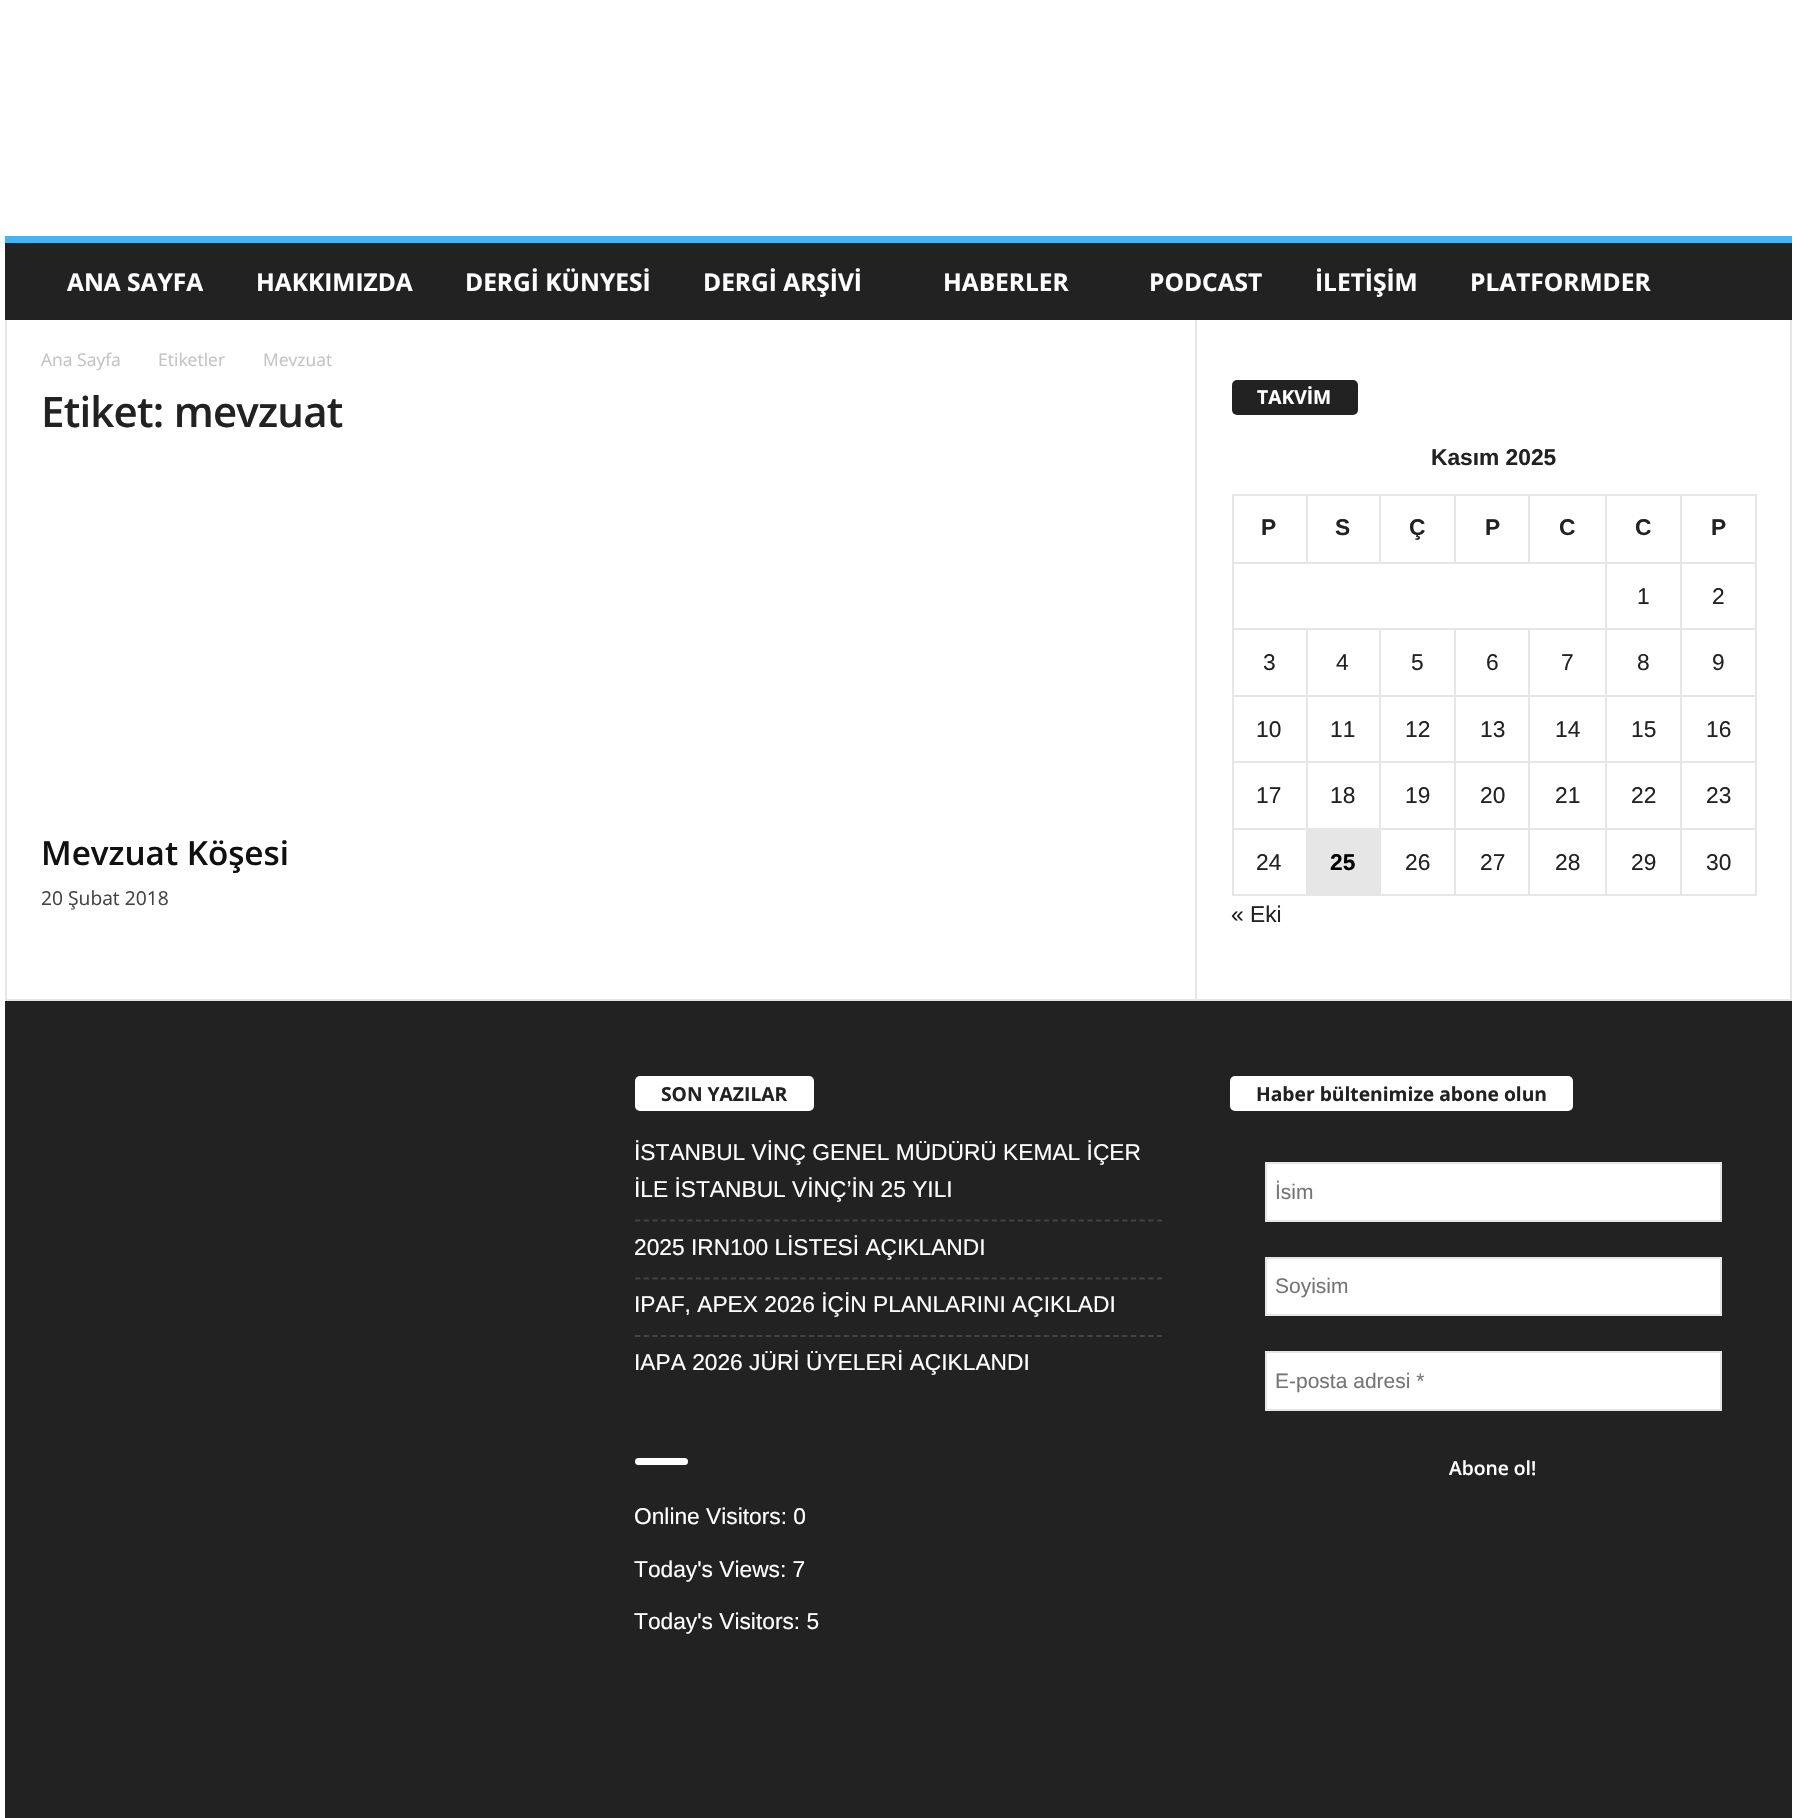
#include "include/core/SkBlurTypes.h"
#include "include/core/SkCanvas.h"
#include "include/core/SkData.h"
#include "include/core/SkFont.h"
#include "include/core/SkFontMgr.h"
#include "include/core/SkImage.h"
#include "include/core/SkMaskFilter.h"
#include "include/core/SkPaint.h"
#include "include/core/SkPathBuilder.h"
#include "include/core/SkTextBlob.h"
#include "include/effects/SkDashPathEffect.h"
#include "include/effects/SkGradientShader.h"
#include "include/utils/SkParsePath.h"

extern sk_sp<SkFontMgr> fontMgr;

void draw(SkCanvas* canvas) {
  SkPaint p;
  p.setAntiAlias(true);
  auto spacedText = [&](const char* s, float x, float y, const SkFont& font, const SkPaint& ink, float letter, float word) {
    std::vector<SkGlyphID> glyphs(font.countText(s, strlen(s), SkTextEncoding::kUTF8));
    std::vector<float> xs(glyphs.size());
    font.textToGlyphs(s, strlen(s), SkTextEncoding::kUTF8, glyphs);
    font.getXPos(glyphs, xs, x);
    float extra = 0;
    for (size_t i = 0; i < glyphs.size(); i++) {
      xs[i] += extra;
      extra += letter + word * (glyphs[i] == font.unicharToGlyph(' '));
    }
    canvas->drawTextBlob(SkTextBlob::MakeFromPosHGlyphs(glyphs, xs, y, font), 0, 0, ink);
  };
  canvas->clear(SK_ColorWHITE);
  p.setColor(SkColorSetRGB(34, 34, 34));
  canvas->drawRect(SkRect::MakeLTRB(5, 243, 1792, 320), p);
  p.setColor(SkColorSetRGB(77, 178, 236));
  canvas->drawRect(SkRect::MakeLTRB(5, 236, 1792, 243), p);
  p.setColor(SkColorSetRGB(230, 230, 230));
  canvas->drawRect(SkRect::MakeLTRB(5, 999, 1792, 1001), p);
  canvas->drawRect(SkRect::MakeLTRB(5, 320, 7, 999), p);
  canvas->drawRect(SkRect::MakeLTRB(1195, 320, 1197, 999), p);
  p.setColor(SkColorSetRGB(34, 34, 34));
  canvas->drawRoundRect(SkRect::MakeLTRB(1232, 380, 1358, 415), 5, 5, p);
  p.setColor(SkColorSetRGB(230, 230, 230));
  canvas->drawRect(SkRect::MakeLTRB(1680, 494, 1757, 496), p);
  canvas->drawRect(SkRect::MakeLTRB(1680, 562, 1757, 564), p);
  canvas->drawRect(SkRect::MakeLTRB(1680, 628, 1757, 630), p);
  canvas->drawRect(SkRect::MakeLTRB(1680, 695, 1757, 697), p);
  canvas->drawRect(SkRect::MakeLTRB(1680, 761, 1757, 763), p);
  canvas->drawRect(SkRect::MakeLTRB(1680, 828, 1757, 830), p);
  canvas->drawRect(SkRect::MakeLTRB(1755, 828, 1757, 896), p);
  canvas->drawRect(SkRect::MakeLTRB(1680, 894, 1757, 896), p);
  canvas->drawRect(SkRect::MakeLTRB(1680, 828, 1682, 896), p);
  canvas->drawRect(SkRect::MakeLTRB(1605, 828, 1682, 830), p);
  canvas->drawRect(SkRect::MakeLTRB(1680, 761, 1682, 830), p);
  canvas->drawRect(SkRect::MakeLTRB(1605, 761, 1682, 763), p);
  canvas->drawRect(SkRect::MakeLTRB(1680, 695, 1682, 763), p);
  canvas->drawRect(SkRect::MakeLTRB(1605, 695, 1682, 697), p);
  canvas->drawRect(SkRect::MakeLTRB(1680, 628, 1682, 697), p);
  canvas->drawRect(SkRect::MakeLTRB(1605, 628, 1682, 630), p);
  canvas->drawRect(SkRect::MakeLTRB(1680, 562, 1682, 630), p);
  canvas->drawRect(SkRect::MakeLTRB(1605, 562, 1682, 564), p);
  canvas->drawRect(SkRect::MakeLTRB(1680, 494, 1682, 564), p);
  canvas->drawRect(SkRect::MakeLTRB(1605, 494, 1682, 496), p);
  canvas->drawRect(SkRect::MakeLTRB(1605, 894, 1682, 896), p);
  canvas->drawRect(SkRect::MakeLTRB(1605, 828, 1607, 896), p);
  canvas->drawRect(SkRect::MakeLTRB(1528, 828, 1607, 830), p);
  canvas->drawRect(SkRect::MakeLTRB(1605, 761, 1607, 830), p);
  canvas->drawRect(SkRect::MakeLTRB(1528, 761, 1607, 763), p);
  canvas->drawRect(SkRect::MakeLTRB(1605, 695, 1607, 763), p);
  canvas->drawRect(SkRect::MakeLTRB(1528, 695, 1607, 697), p);
  canvas->drawRect(SkRect::MakeLTRB(1605, 628, 1607, 697), p);
  canvas->drawRect(SkRect::MakeLTRB(1528, 628, 1607, 630), p);
  canvas->drawRect(SkRect::MakeLTRB(1605, 562, 1607, 630), p);
  canvas->drawRect(SkRect::MakeLTRB(1232, 562, 1607, 564), p);
  canvas->drawRect(SkRect::MakeLTRB(1605, 494, 1607, 564), p);
  canvas->drawRect(SkRect::MakeLTRB(1528, 494, 1607, 496), p);
  canvas->drawRect(SkRect::MakeLTRB(1528, 494, 1530, 564), p);
  canvas->drawRect(SkRect::MakeLTRB(1454, 494, 1530, 496), p);
  canvas->drawRect(SkRect::MakeLTRB(1454, 494, 1456, 564), p);
  canvas->drawRect(SkRect::MakeLTRB(1379, 494, 1456, 496), p);
  canvas->drawRect(SkRect::MakeLTRB(1379, 494, 1381, 564), p);
  canvas->drawRect(SkRect::MakeLTRB(1306, 494, 1381, 496), p);
  canvas->drawRect(SkRect::MakeLTRB(1306, 494, 1308, 564), p);
  canvas->drawRect(SkRect::MakeLTRB(1232, 494, 1307, 496), p);
  canvas->drawRect(SkRect::MakeLTRB(1528, 894, 1607, 896), p);
  canvas->drawRect(SkRect::MakeLTRB(1528, 828, 1530, 896), p);
  canvas->drawRect(SkRect::MakeLTRB(1454, 828, 1530, 830), p);
  canvas->drawRect(SkRect::MakeLTRB(1528, 761, 1530, 830), p);
  canvas->drawRect(SkRect::MakeLTRB(1454, 761, 1530, 763), p);
  canvas->drawRect(SkRect::MakeLTRB(1528, 695, 1530, 763), p);
  canvas->drawRect(SkRect::MakeLTRB(1454, 695, 1530, 697), p);
  canvas->drawRect(SkRect::MakeLTRB(1528, 628, 1530, 697), p);
  canvas->drawRect(SkRect::MakeLTRB(1454, 628, 1530, 630), p);
  canvas->drawRect(SkRect::MakeLTRB(1454, 894, 1530, 896), p);
  canvas->drawRect(SkRect::MakeLTRB(1454, 828, 1456, 896), p);
  canvas->drawRect(SkRect::MakeLTRB(1379, 828, 1456, 830), p);
  canvas->drawRect(SkRect::MakeLTRB(1454, 761, 1456, 830), p);
  canvas->drawRect(SkRect::MakeLTRB(1379, 761, 1456, 763), p);
  canvas->drawRect(SkRect::MakeLTRB(1454, 695, 1456, 763), p);
  canvas->drawRect(SkRect::MakeLTRB(1379, 695, 1456, 697), p);
  canvas->drawRect(SkRect::MakeLTRB(1454, 628, 1456, 697), p);
  canvas->drawRect(SkRect::MakeLTRB(1379, 628, 1456, 630), p);
  canvas->drawRect(SkRect::MakeLTRB(1379, 894, 1456, 896), p);
  canvas->drawRect(SkRect::MakeLTRB(1379, 828, 1381, 896), p);
  canvas->drawRect(SkRect::MakeLTRB(1379, 761, 1381, 830), p);
  canvas->drawRect(SkRect::MakeLTRB(1306, 761, 1381, 763), p);
  canvas->drawRect(SkRect::MakeLTRB(1379, 695, 1381, 763), p);
  canvas->drawRect(SkRect::MakeLTRB(1306, 695, 1381, 697), p);
  canvas->drawRect(SkRect::MakeLTRB(1379, 628, 1381, 697), p);
  canvas->drawRect(SkRect::MakeLTRB(1306, 628, 1381, 630), p);
  canvas->drawRect(SkRect::MakeLTRB(1306, 828, 1379, 894), p);
  canvas->drawRect(SkRect::MakeLTRB(1232, 828, 1307, 830), p);
  canvas->drawRect(SkRect::MakeLTRB(1306, 761, 1308, 830), p);
  canvas->drawRect(SkRect::MakeLTRB(1232, 761, 1307, 763), p);
  canvas->drawRect(SkRect::MakeLTRB(1306, 695, 1308, 763), p);
  canvas->drawRect(SkRect::MakeLTRB(1232, 695, 1307, 697), p);
  canvas->drawRect(SkRect::MakeLTRB(1306, 628, 1308, 697), p);
  canvas->drawRect(SkRect::MakeLTRB(1232, 628, 1307, 630), p);
  canvas->drawRect(SkRect::MakeLTRB(1232, 894, 1381, 896), p);
  canvas->drawRect(SkRect::MakeLTRB(1232, 828, 1234, 896), p);
  canvas->drawRect(SkRect::MakeLTRB(1232, 761, 1234, 830), p);
  canvas->drawRect(SkRect::MakeLTRB(1232, 695, 1234, 763), p);
  canvas->drawRect(SkRect::MakeLTRB(1232, 628, 1234, 697), p);
  canvas->drawRect(SkRect::MakeLTRB(1232, 562, 1234, 630), p);
  canvas->drawRect(SkRect::MakeLTRB(1232, 494, 1234, 564), p);
  canvas->drawRect(SkRect::MakeLTRB(1755, 761, 1757, 830), p);
  canvas->drawRect(SkRect::MakeLTRB(1755, 695, 1757, 763), p);
  canvas->drawRect(SkRect::MakeLTRB(1755, 628, 1757, 697), p);
  canvas->drawRect(SkRect::MakeLTRB(1755, 562, 1757, 630), p);
  canvas->drawRect(SkRect::MakeLTRB(1755, 494, 1757, 564), p);
  canvas->drawRect(SkRect::MakeLTRB(1790, 320, 1792, 999), p);
  p.setColor(SkColorSetRGB(34, 34, 34));
  canvas->drawRect(SkRect::MakeLTRB(5, 1001, 1792, 1818), p);
  p.setColor(SK_ColorWHITE);
  canvas->drawRoundRect(SkRect::MakeLTRB(635, 1076, 814, 1111), 5, 5, p);
  p.setStyle(SkPaint::kStroke_Style);
  p.setStrokeWidth(1.8f);
  p.setColor(SkColorSetRGB(67, 67, 67));
  p.setPathEffect(SkDashPathEffect::Make({{5.25f, 3.45f}}, 0));
  canvas->drawPath(SkPathBuilder().moveTo(635, 1220.5f).lineTo(1162, 1220.5f).detach(), p);
  p.setPathEffect(nullptr);
  p.setPathEffect(SkDashPathEffect::Make({{5.25f, 3.45f}}, 0));
  canvas->drawPath(SkPathBuilder().moveTo(635, 1278.5f).lineTo(1162, 1278.5f).detach(), p);
  p.setPathEffect(nullptr);
  p.setPathEffect(SkDashPathEffect::Make({{5.25f, 3.45f}}, 0));
  canvas->drawPath(SkPathBuilder().moveTo(635, 1336).lineTo(1162, 1336).detach(), p);
  p.setPathEffect(nullptr);
  p.setStyle(SkPaint::kFill_Style);
  p.setColor(SK_ColorWHITE);
  canvas->drawRoundRect(SkRect::MakeLTRB(635, 1458, 688, 1465), 3.5f, 3.5f, p);
  canvas->drawRoundRect(SkRect::MakeLTRB(1230, 1076, 1573, 1111), 5, 5, p);
  canvas->drawRect(SkRect::MakeLTRB(1266, 1163, 1721, 1221), p);
  p.setStyle(SkPaint::kStroke_Style);
  p.setStrokeWidth(2);
  p.setColor(SkColorSetRGB(230, 230, 230));
  canvas->drawRect(SkRect::MakeLTRB(1266, 1163, 1721, 1221), p);
  p.setStyle(SkPaint::kFill_Style);
  p.setColor(SK_ColorWHITE);
  canvas->drawRect(SkRect::MakeLTRB(1266, 1258, 1721, 1315), p);
  p.setStyle(SkPaint::kStroke_Style);
  p.setColor(SkColorSetRGB(230, 230, 230));
  canvas->drawRect(SkRect::MakeLTRB(1266, 1258, 1721, 1315), p);
  p.setStyle(SkPaint::kFill_Style);
  p.setColor(SK_ColorWHITE);
  canvas->drawRect(SkRect::MakeLTRB(1266, 1352, 1721, 1410), p);
  p.setStyle(SkPaint::kStroke_Style);
  p.setColor(SkColorSetRGB(230, 230, 230));
  canvas->drawRect(SkRect::MakeLTRB(1266, 1352, 1721, 1410), p);
  SkFont font1(fontMgr->matchFamilyStyle("Open Sans", SkFontStyle::Bold()), 24.5f);
  font1.setSubpixel(true);
  p.setStyle(SkPaint::kFill_Style);
  p.setColor(SK_ColorWHITE);
  canvas->drawString("ANA SAYFA", 67, 291, font1, p);
  canvas->drawString("HAKKIMIZDA", 256, 291, font1, p);
  canvas->drawString("DERGİ KÜNYESİ", 465, 291, font1, p);
  canvas->drawString("DERGİ ARŞİVİ", 703, 291, font1, p);
  canvas->drawString("HABERLER", 943, 291, font1, p);
  canvas->drawString("PODCAST", 1149, 291, font1, p);
  canvas->drawString("İLETİŞİM", 1315, 291, font1, p);
  canvas->drawString("PLATFORMDER", 1470, 291, font1, p);
  SkFont font2(fontMgr->matchFamilyStyle("Open Sans", SkFontStyle::Normal()), 17.5f);
  font2.setSubpixel(true);
  p.setColor(SkColorSetRGB(195, 195, 195));
  canvas->drawString("Ana Sayfa", 41, 366, font2, p);
  canvas->drawString("Etiketler", 158, 366, font2, p);
  canvas->drawString("Mevzuat", 263, 366, font2, p);
  SkFont font3(fontMgr->matchFamilyStyle("Open Sans", SkFontStyle(600, SkFontStyle::kNormal_Width, SkFontStyle::kUpright_Slant)), 42);
  font3.setSubpixel(true);
  p.setColor(SkColorSetRGB(34, 34, 34));
  spacedText("Etiket: mevzuat", 41, 427, font3, p, -0.8f, 0);
  SkFont font4(fontMgr->matchFamilyStyle("Open Sans", SkFontStyle(600, SkFontStyle::kNormal_Width, SkFontStyle::kUpright_Slant)), 33.25f);
  font4.setSubpixel(true);
  p.setColor(SkColorSetRGB(17, 17, 17));
  canvas->drawString("Mevzuat Köşesi", 41, 865, font4, p);
  SkFont font5(fontMgr->matchFamilyStyle("Open Sans", SkFontStyle::Normal()), 19.25f);
  font5.setSubpixel(true);
  p.setColor(SkColorSetRGB(68, 68, 68));
  canvas->drawString("20 Şubat 2018", 41, 905, font5, p);
  SkFont font6(fontMgr->matchFamilyStyle("Open Sans", SkFontStyle::Bold()), 19.25f);
  font6.setSubpixel(true);
  p.setColor(SK_ColorWHITE);
  canvas->drawString("TAKVİM", 1257, 404, font6, p);
  SkFont font7(fontMgr->matchFamilyStyle("Liberation Sans", SkFontStyle::Bold()), 22.75f);
  font7.setSubpixel(true);
  p.setColor(SkColorSetRGB(34, 34, 34));
  canvas->drawString("Kasım 2025", 1431, 465, font7, p);
  canvas->drawString("P", 1261, 535, font7, p);
  canvas->drawString("S", 1335, 535, font7, p);
  canvas->drawString("Ç", 1409, 535, font7, p);
  canvas->drawString("P", 1485, 535, font7, p);
  canvas->drawString("C", 1559, 535, font7, p);
  canvas->drawString("C", 1635, 535, font7, p);
  canvas->drawString("P", 1711, 535, font7, p);
  SkFont font8(fontMgr->matchFamilyStyle("Liberation Sans", SkFontStyle::Normal()), 22.75f);
  font8.setSubpixel(true);
  canvas->drawString("1", 1637, 604, font8, p);
  canvas->drawString("2", 1712, 604, font8, p);
  canvas->drawString("3", 1263, 670, font8, p);
  canvas->drawString("4", 1336, 670, font8, p);
  canvas->drawString("5", 1411, 670, font8, p);
  canvas->drawString("6", 1486, 670, font8, p);
  canvas->drawString("7", 1561, 670, font8, p);
  canvas->drawString("8", 1637, 670, font8, p);
  canvas->drawString("9", 1712, 670, font8, p);
  canvas->drawString("10", 1256, 737, font8, p);
  canvas->drawString("11", 1330, 737, font8, p);
  canvas->drawString("12", 1405, 737, font8, p);
  canvas->drawString("13", 1480, 737, font8, p);
  canvas->drawString("14", 1555, 737, font8, p);
  canvas->drawString("15", 1631, 737, font8, p);
  canvas->drawString("16", 1706, 737, font8, p);
  canvas->drawString("17", 1256, 803, font8, p);
  canvas->drawString("18", 1330, 803, font8, p);
  canvas->drawString("19", 1405, 803, font8, p);
  canvas->drawString("20", 1480, 803, font8, p);
  canvas->drawString("21", 1555, 803, font8, p);
  canvas->drawString("22", 1631, 803, font8, p);
  canvas->drawString("23", 1706, 803, font8, p);
  canvas->drawString("24", 1256, 870, font8, p);
  p.setColor(SK_ColorBLACK);
  canvas->drawString("25", 1330, 870, font7, p);
  p.setColor(SkColorSetRGB(34, 34, 34));
  canvas->drawString("26", 1405, 870, font8, p);
  canvas->drawString("27", 1480, 870, font8, p);
  canvas->drawString("28", 1555, 870, font8, p);
  canvas->drawString("29", 1631, 870, font8, p);
  canvas->drawString("30", 1706, 870, font8, p);
  canvas->drawString("« Eki", 1231, 922, font8, p);
  canvas->drawString("SON YAZILAR", 661, 1101, font6, p);
  p.setColor(SK_ColorWHITE);
  canvas->drawString("İSTANBUL VİNÇ GENEL MÜDÜRÜ KEMAL İÇER", 634, 1160, font8, p);
  canvas->drawString("İLE İSTANBUL VİNÇ’İN 25 YILI", 634, 1197, font8, p);
  canvas->drawString("2025 IRN100 LİSTESİ AÇIKLANDI", 634, 1255, font8, p);
  canvas->drawString("IPAF, APEX 2026 İÇİN PLANLARINI AÇIKLADI", 634, 1312, font8, p);
  canvas->drawString("IAPA 2026 JÜRİ ÜYELERİ AÇIKLANDI", 634, 1370, font8, p);
  canvas->drawString("Online Visitors: 0", 634, 1524, font8, p);
  canvas->drawString("Today's Views: 7", 634, 1577, font8, p);
  canvas->drawString("Today's Visitors: 5", 634, 1629, font8, p);
  p.setColor(SkColorSetRGB(34, 34, 34));
  canvas->drawString("Haber bültenimize abone olun", 1256, 1101, font6, p);
  SkFont font9(fontMgr->matchFamilyStyle("Liberation Sans", SkFontStyle::Normal()), 21);
  font9.setSubpixel(true);
  p.setColor(SkColorSetRGB(117, 117, 117));
  canvas->drawString("İsim", 1275, 1199, font9, p);
  canvas->drawString("Soyisim", 1275, 1293, font9, p);
  canvas->drawString("E-posta adresi *", 1275, 1388, font9, p);
  SkFont font10(fontMgr->matchFamilyStyle("Open Sans", SkFontStyle(600, SkFontStyle::kNormal_Width, SkFontStyle::kUpright_Slant)), 19.25f);
  font10.setSubpixel(true);
  p.setColor(SK_ColorWHITE);
  canvas->drawString("Abone ol!", 1449, 1475, font10, p);
}
